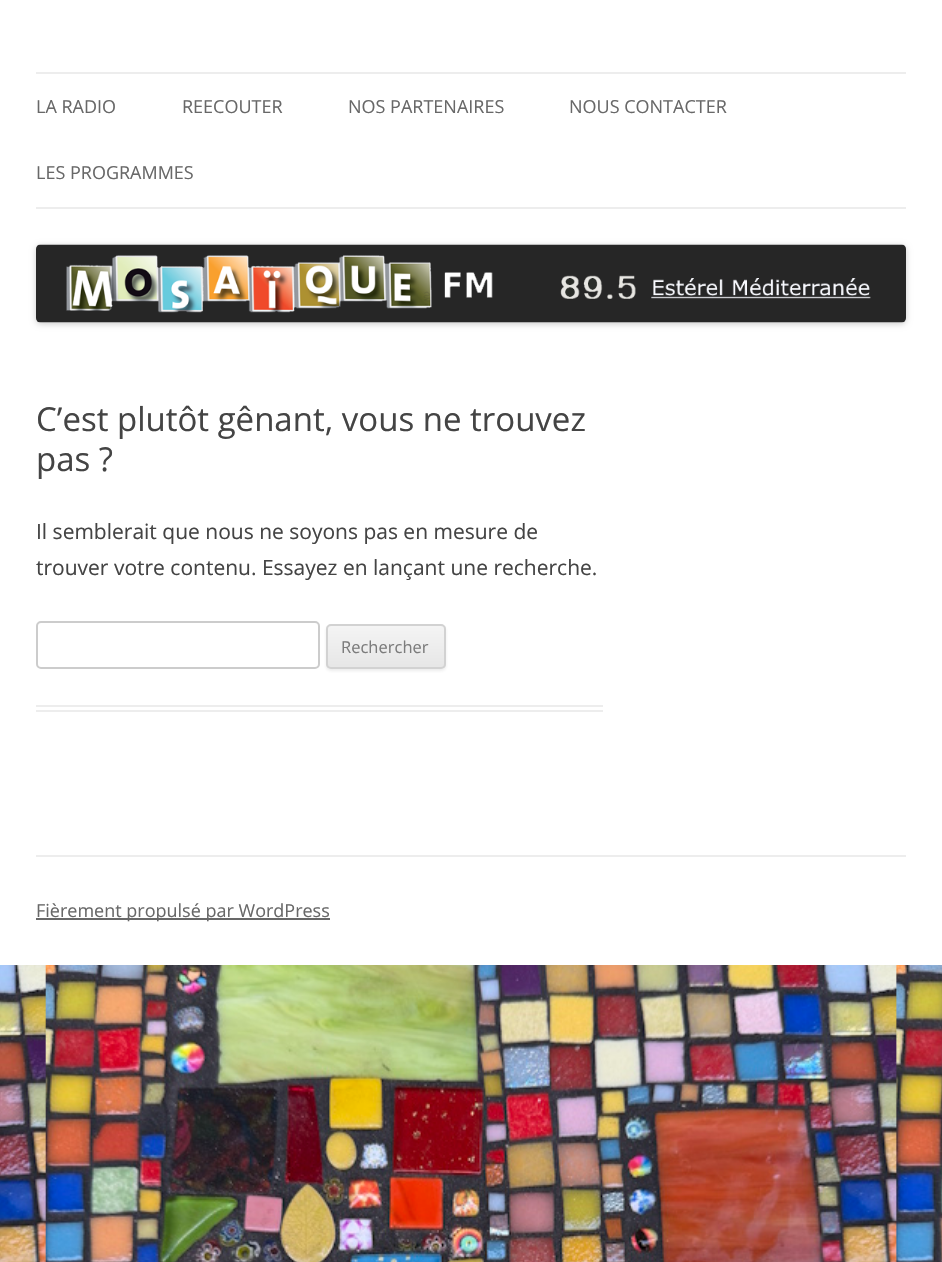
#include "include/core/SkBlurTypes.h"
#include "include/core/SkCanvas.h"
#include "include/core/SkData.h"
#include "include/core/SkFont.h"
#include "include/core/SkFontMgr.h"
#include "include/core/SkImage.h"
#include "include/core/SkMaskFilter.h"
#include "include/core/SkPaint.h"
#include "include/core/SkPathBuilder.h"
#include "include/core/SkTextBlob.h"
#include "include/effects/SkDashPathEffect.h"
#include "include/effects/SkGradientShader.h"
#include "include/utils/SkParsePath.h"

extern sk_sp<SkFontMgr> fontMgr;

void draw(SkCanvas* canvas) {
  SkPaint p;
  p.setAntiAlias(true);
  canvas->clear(SK_ColorWHITE);
  canvas->drawImageRect(SkImages::DeferredFromEncodedData(SkData::MakeFromFileName("images/1.png")), SkRect::MakeLTRB(0, 965, 942, 1262), SkSamplingOptions());
  p.setColor(SkColorSetRGB(237, 237, 237));
  canvas->drawRect(SkRect::MakeLTRB(36, 72, 906, 74), p);
  canvas->drawRect(SkRect::MakeLTRB(36, 207, 906, 209), p);
  p.setColor(SkColorSetARGB(51, 0, 0, 0));
  p.setMaskFilter(SkMaskFilter::MakeBlur(kNormal_SkBlurStyle, 3));
  canvas->drawRoundRect(SkRect::MakeLTRB(36, 246, 906, 324), 5, 5, p);
  p.setMaskFilter(nullptr);
  canvas->drawImageRect(SkImages::DeferredFromEncodedData(SkData::MakeFromFileName("images/2.png")), SkRect::MakeLTRB(36, 244, 906, 323), SkSamplingOptions());
  p.setColor(SkColorSetRGB(237, 237, 237));
  canvas->drawRect(SkRect::MakeLTRB(36, 705, 603, 707), p);
  canvas->drawRect(SkRect::MakeLTRB(36, 710, 603, 712), p);
  p.setStyle(SkPaint::kStroke_Style);
  p.setStrokeWidth(2);
  p.setColor(SkColorSetRGB(204, 204, 204));
  canvas->drawRoundRect(SkRect::MakeLTRB(37, 622, 319, 668), 4, 4, p);
  p.setStyle(SkPaint::kFill_Style);
  p.setColor(SkColorSetARGB(26, 64, 64, 64));
  p.setMaskFilter(SkMaskFilter::MakeBlur(kNormal_SkBlurStyle, 1.5f));
  canvas->drawRoundRect(SkRect::MakeLTRB(326, 626, 446, 671), 5, 5, p);
  p.setMaskFilter(nullptr);
  canvas->save();
  canvas->clipPath(SkPathBuilder().moveTo(331, 624).lineTo(441, 624).cubicTo(444, 624, 446, 626, 446, 629).lineTo(446, 664).cubicTo(446, 667, 444, 669, 441, 669).lineTo(331, 669).cubicTo(328, 669, 326, 667, 326, 664).lineTo(326, 629).cubicTo(326, 626, 328, 624, 331, 624).close().detach(), true);
  {
    const SkColor colors[] = {SkColorSetRGB(244, 244, 244), SkColorSetRGB(230, 230, 230)};
    const float stops[] = {0, 1};
    const SkPoint ends[] = {{386, 626}, {386, 668}};
    p.setShader(SkGradientShader::MakeLinear(ends, colors, stops, 2, SkTileMode::kClamp));
    p.setAlpha(255);
  }
  canvas->drawRect(SkRect::MakeLTRB(326, 626, 446, 668), p);
  canvas->restore();
  p.setStyle(SkPaint::kStroke_Style);
  p.setShader(nullptr);
  p.setColor(SkColorSetRGB(210, 210, 210));
  canvas->drawRoundRect(SkRect::MakeLTRB(327, 625, 445, 668), 4, 4, p);
  p.setStyle(SkPaint::kFill_Style);
  p.setColor(SkColorSetRGB(237, 237, 237));
  canvas->drawRect(SkRect::MakeLTRB(36, 855, 906, 857), p);
  p.setColor(SkColorSetRGB(104, 104, 104));
  canvas->drawRect(SkRect::MakeLTRB(36, 918, 330, 920), p);
  SkFont font1(fontMgr->matchFamilyStyle("Open Sans", SkFontStyle::Normal()), 18);
  font1.setSubpixel(true);
  canvas->drawString("LA RADIO", 36, 113, font1, p);
  canvas->drawString("REECOUTER", 182, 113, font1, p);
  canvas->drawString("NOS PARTENAIRES", 348, 113, font1, p);
  canvas->drawString("NOUS CONTACTER", 569, 113, font1, p);
  canvas->drawString("LES PROGRAMMES", 36, 179, font1, p);
  SkFont font2(fontMgr->matchFamilyStyle("Open Sans", SkFontStyle::Normal()), 33);
  font2.setSubpixel(true);
  p.setColor(SkColorSetRGB(68, 68, 68));
  canvas->drawString("C’est plutôt gênant, vous ne trouvez", 36, 431, font2, p);
  canvas->drawString("pas ?", 36, 471, font2, p);
  SkFont font3(fontMgr->matchFamilyStyle("Open Sans", SkFontStyle::Normal()), 21);
  font3.setSubpixel(true);
  canvas->drawString("Il semblerait que nous ne soyons pas en mesure de", 36, 539, font3, p);
  canvas->drawString("trouver votre contenu. Essayez en lançant une recherche.", 36, 575, font3, p);
  SkFont font4(fontMgr->matchFamilyStyle("Open Sans", SkFontStyle::Normal()), 16.5f);
  font4.setSubpixel(true);
  p.setColor(SkColorSetRGB(124, 124, 124));
  canvas->drawString("Rechercher", 341, 653, font4, p);
  p.setColor(SkColorSetRGB(104, 104, 104));
  canvas->drawString("Fièrement propulsé par WordPress", 36, 917, font1, p);
}
